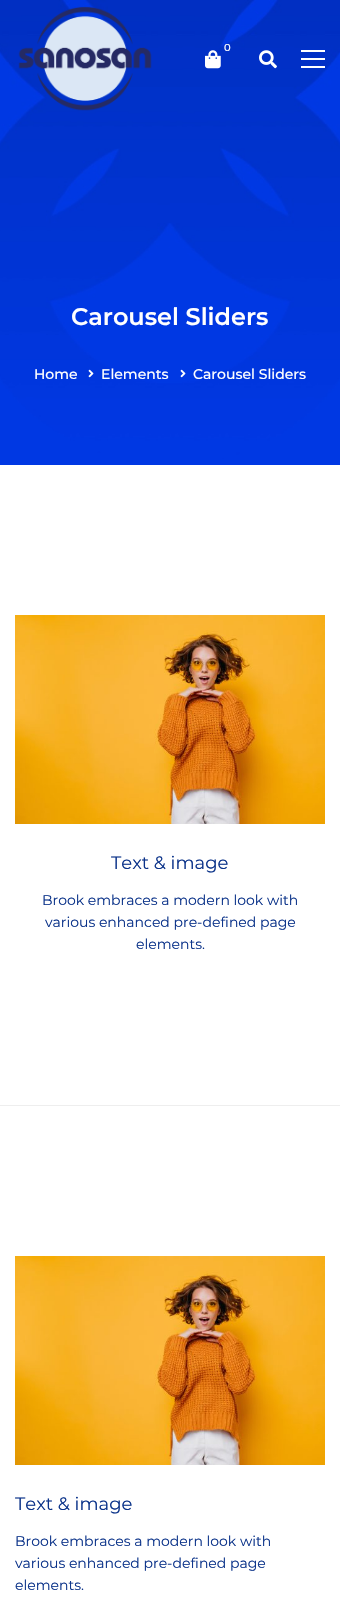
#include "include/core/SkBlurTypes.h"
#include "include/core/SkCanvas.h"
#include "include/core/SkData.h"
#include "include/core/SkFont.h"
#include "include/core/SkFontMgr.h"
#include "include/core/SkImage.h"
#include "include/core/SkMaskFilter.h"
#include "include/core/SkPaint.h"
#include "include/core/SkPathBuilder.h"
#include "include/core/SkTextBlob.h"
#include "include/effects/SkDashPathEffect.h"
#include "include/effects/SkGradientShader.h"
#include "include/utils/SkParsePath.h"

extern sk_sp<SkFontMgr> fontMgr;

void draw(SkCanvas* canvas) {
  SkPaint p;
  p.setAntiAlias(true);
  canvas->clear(SK_ColorWHITE);
  canvas->drawImageRect(SkImages::DeferredFromEncodedData(SkData::MakeFromFileName("images/4.png")), SkRect::MakeLTRB(0, 0, 340, 465), SkSamplingOptions());
  canvas->drawImageRect(SkImages::DeferredFromEncodedData(SkData::MakeFromFileName("images/1.png")), SkRect::MakeLTRB(18, 6, 152, 111), SkSamplingOptions());
  canvas->drawImageRect(SkImages::DeferredFromEncodedData(SkData::MakeFromFileName("images/2.png")), SkRect::MakeLTRB(205, 50, 221, 69), SkSamplingOptions());
  canvas->drawImageRect(SkImages::DeferredFromEncodedData(SkData::MakeFromFileName("images/3.png")), SkRect::MakeLTRB(259, 50, 277, 69), SkSamplingOptions());
  p.setColor(SK_ColorWHITE);
  canvas->drawRect(SkRect::MakeLTRB(301, 58, 325, 60), p);
  canvas->drawRect(SkRect::MakeLTRB(301, 50, 325, 52), p);
  canvas->drawRect(SkRect::MakeLTRB(301, 66, 325, 68), p);
  canvas->drawImageRect(SkImages::DeferredFromEncodedData(SkData::MakeFromFileName("images/5.png")), SkRect::MakeLTRB(88, 369, 94, 378), SkSamplingOptions());
  canvas->drawImageRect(SkImages::DeferredFromEncodedData(SkData::MakeFromFileName("images/6.png")), SkRect::MakeLTRB(180, 369, 186, 378), SkSamplingOptions());
  p.setColor(SkColorSetRGB(238, 238, 238));
  canvas->drawRect(SkRect::MakeLTRB(0, 1105, 340, 1106), p);
  canvas->drawImageRect(SkImages::DeferredFromEncodedData(SkData::MakeFromFileName("images/7.png")), SkRect::MakeLTRB(15, 615, 325, 824), SkSamplingOptions());
  canvas->drawImageRect(SkImages::DeferredFromEncodedData(SkData::MakeFromFileName("images/7.png")), SkRect::MakeLTRB(15, 1256, 325, 1465), SkSamplingOptions());
  SkFont font1(fontMgr->matchFamilyStyle("Montserrat", SkFontStyle(500, SkFontStyle::kNormal_Width, SkFontStyle::kUpright_Slant)), 10);
  font1.setSubpixel(true);
  p.setColor(SK_ColorWHITE);
  canvas->drawString("0", 224, 51, font1, p);
  SkFont font2(fontMgr->matchFamilyStyle("Montserrat", SkFontStyle(600, SkFontStyle::kNormal_Width, SkFontStyle::kUpright_Slant)), 24);
  font2.setSubpixel(true);
  canvas->drawString("Carousel Sliders", 71, 325, font2, p);
  SkFont font3(fontMgr->matchFamilyStyle("Montserrat", SkFontStyle(500, SkFontStyle::kNormal_Width, SkFontStyle::kUpright_Slant)), 14);
  font3.setSubpixel(true);
  canvas->drawString("Home", 34, 379, font3, p);
  canvas->drawString("Elements", 101, 379, font3, p);
  canvas->drawString("Carousel Sliders", 193, 379, font3, p);
  SkFont font4(fontMgr->matchFamilyStyle("Montserrat", SkFontStyle::Normal()), 18);
  font4.setSubpixel(true);
  p.setColor(SkColorSetRGB(10, 50, 137));
  canvas->drawString("Text & image", 111, 869, font4, p);
  SkFont font5(fontMgr->matchFamilyStyle("Montserrat", SkFontStyle::Normal()), 14);
  font5.setSubpixel(true);
  canvas->drawString("Brook embraces a modern look with", 42, 905, font5, p);
  canvas->drawString("various enhanced pre-defined page", 45, 927, font5, p);
  canvas->drawString("elements.", 136, 949, font5, p);
  canvas->drawString("Text & image", 15, 1510, font4, p);
  canvas->drawString("Brook embraces a modern look with", 15, 1546, font5, p);
  canvas->drawString("various enhanced pre-defined page", 15, 1568, font5, p);
  canvas->drawString("elements.", 15, 1590, font5, p);
}
